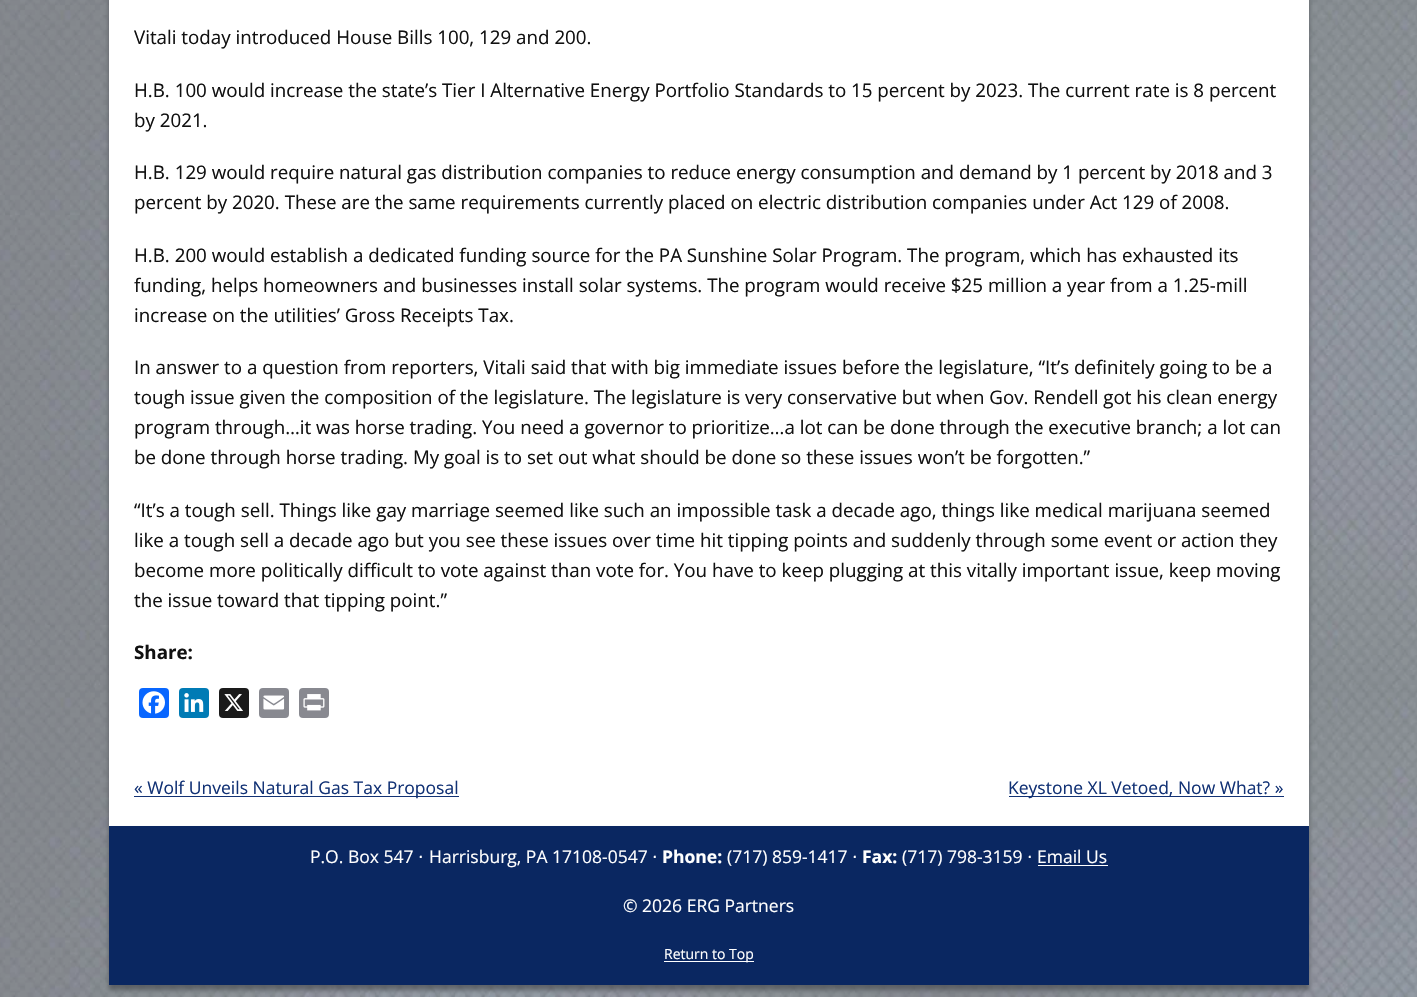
#include "include/core/SkBlurTypes.h"
#include "include/core/SkCanvas.h"
#include "include/core/SkData.h"
#include "include/core/SkFont.h"
#include "include/core/SkFontMgr.h"
#include "include/core/SkImage.h"
#include "include/core/SkMaskFilter.h"
#include "include/core/SkPaint.h"
#include "include/core/SkPathBuilder.h"
#include "include/core/SkTextBlob.h"
#include "include/effects/SkDashPathEffect.h"
#include "include/effects/SkGradientShader.h"
#include "include/utils/SkParsePath.h"

extern sk_sp<SkFontMgr> fontMgr;

void draw(SkCanvas* canvas) {
  SkPaint p;
  p.setAntiAlias(true);
  canvas->clear(SK_ColorWHITE);
  canvas->drawImageRect(SkImages::DeferredFromEncodedData(SkData::MakeFromFileName("images/1.png")), SkRect::MakeLTRB(0, 0, 1417, 997), SkSamplingOptions());
  p.setColor(SkColorSetARGB(191, 78, 82, 86));
  p.setMaskFilter(SkMaskFilter::MakeBlur(kNormal_SkBlurStyle, 2.5f));
  canvas->drawRect(SkRect::MakeLTRB(109, -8, 1309, 831), p);
  p.setMaskFilter(nullptr);
  p.setColor(SK_ColorWHITE);
  canvas->drawRect(SkRect::MakeLTRB(109, 0, 1309, 826), p);
  p.setColor(SkColorSetRGB(8, 102, 255));
  canvas->drawRoundRect(SkRect::MakeLTRB(139, 688, 169, 718), 4, 4, p);
  canvas->drawImageRect(SkImages::DeferredFromEncodedData(SkData::MakeFromFileName("images/2.png")), SkRect::MakeLTRB(142, 691, 165, 714), SkSamplingOptions());
  p.setColor(SkColorSetRGB(0, 123, 181));
  canvas->drawRoundRect(SkRect::MakeLTRB(179, 688, 209, 718), 4, 4, p);
  canvas->drawImageRect(SkImages::DeferredFromEncodedData(SkData::MakeFromFileName("images/3.png")), SkRect::MakeLTRB(184, 693, 204, 712), SkSamplingOptions());
  p.setColor(SkColorSetRGB(26, 26, 26));
  canvas->drawRoundRect(SkRect::MakeLTRB(219, 688, 249, 718), 4, 4, p);
  canvas->drawImageRect(SkImages::DeferredFromEncodedData(SkData::MakeFromFileName("images/4.png")), SkRect::MakeLTRB(224, 694, 243, 711), SkSamplingOptions());
  p.setColor(SkColorSetRGB(136, 137, 144));
  canvas->drawRoundRect(SkRect::MakeLTRB(259, 688, 289, 718), 4, 4, p);
  canvas->drawImageRect(SkImages::DeferredFromEncodedData(SkData::MakeFromFileName("images/5.png")), SkRect::MakeLTRB(263, 695, 285, 710), SkSamplingOptions());
  canvas->drawRoundRect(SkRect::MakeLTRB(299, 688, 329, 718), 4, 4, p);
  canvas->drawImageRect(SkImages::DeferredFromEncodedData(SkData::MakeFromFileName("images/6.png")), SkRect::MakeLTRB(303, 694, 325, 711), SkSamplingOptions());
  p.setColor(SkColorSetRGB(18, 50, 117));
  canvas->drawRect(SkRect::MakeLTRB(134, 796, 459, 797), p);
  canvas->drawRect(SkRect::MakeLTRB(1009, 796, 1284, 797), p);
  p.setColor(SkColorSetARGB(191, 78, 82, 86));
  p.setMaskFilter(SkMaskFilter::MakeBlur(kNormal_SkBlurStyle, 2.5f));
  canvas->drawRect(SkRect::MakeLTRB(109, 831, 1309, 990), p);
  p.setMaskFilter(nullptr);
  p.setColor(SkColorSetRGB(10, 39, 97));
  canvas->drawRect(SkRect::MakeLTRB(109, 826, 1309, 985), p);
  p.setColor(SK_ColorWHITE);
  canvas->drawRect(SkRect::MakeLTRB(1038, 865, 1108, 866), p);
  canvas->drawRect(SkRect::MakeLTRB(664, 961, 754, 962), p);
  SkFont font1(fontMgr->matchFamilyStyle("Open Sans", SkFontStyle::Normal()), 18.75f);
  font1.setSubpixel(true);
  p.setColor(SkColorSetRGB(17, 17, 17));
  canvas->drawString("Vitali today introduced House Bills 100, 129 and 200.", 134, 44, font1, p);
  canvas->drawString("H.B. 100 would increase the state’s Tier I Alternative Energy Portfolio Standards to 15 percent by 2023. The current rate is 8 percent", 134, 97, font1, p);
  canvas->drawString("by 2021.", 134, 127, font1, p);
  canvas->drawString("H.B. 129 would require natural gas distribution companies to reduce energy consumption and demand by 1 percent by 2018 and 3", 134, 179, font1, p);
  canvas->drawString("percent by 2020. These are the same requirements currently placed on electric distribution companies under Act 129 of 2008.", 134, 209, font1, p);
  canvas->drawString("H.B. 200 would establish a dedicated funding source for the PA Sunshine Solar Program. The program, which has exhausted its", 134, 262, font1, p);
  canvas->drawString("funding, helps homeowners and businesses install solar systems. The program would receive $25 million a year from a 1.25-mill", 134, 292, font1, p);
  canvas->drawString("increase on the utilities’ Gross Receipts Tax.", 134, 322, font1, p);
  canvas->drawString("In answer to a question from reporters, Vitali said that with big immediate issues before the legislature, “It’s definitely going to be a", 134, 374, font1, p);
  canvas->drawString("tough issue given the composition of the legislature. The legislature is very conservative but when Gov. Rendell got his clean energy", 134, 404, font1, p);
  canvas->drawString("program through…it was horse trading. You need a governor to prioritize…a lot can be done through the executive branch; a lot can", 134, 434, font1, p);
  canvas->drawString("be done through horse trading. My goal is to set out what should be done so these issues won’t be forgotten.”", 134, 464, font1, p);
  canvas->drawString("“It’s a tough sell. Things like gay marriage seemed like such an impossible task a decade ago, things like medical marijuana seemed", 134, 517, font1, p);
  canvas->drawString("like a tough sell a decade ago but you see these issues over time hit tipping points and suddenly through some event or action they", 134, 547, font1, p);
  canvas->drawString("become more politically difficult to vote against than vote for. You have to keep plugging at this vitally important issue, keep moving", 134, 577, font1, p);
  canvas->drawString("the issue toward that tipping point.”", 134, 607, font1, p);
  SkFont font2(fontMgr->matchFamilyStyle("Open Sans", SkFontStyle::Bold()), 18.75f);
  font2.setSubpixel(true);
  canvas->drawString("Share:", 134, 659, font2, p);
  SkFont font3(fontMgr->matchFamilyStyle("Open Sans", SkFontStyle::Normal()), 17.5f);
  font3.setSubpixel(true);
  p.setColor(SkColorSetRGB(18, 50, 117));
  canvas->drawString("« Wolf Unveils Natural Gas Tax Proposal", 134, 794, font3, p);
  canvas->drawString("Keystone XL Vetoed, Now What? »", 1008, 794, font3, p);
  p.setColor(SK_ColorWHITE);
  canvas->drawString("P.O. Box 547", 310, 863, font3, p);
  SkFont font4(fontMgr->matchFamilyStyle("DejaVu Sans", SkFontStyle::Normal()), 17.5f);
  font4.setSubpixel(true);
  canvas->drawString("⋅", 418, 863, font4, p);
  canvas->drawString("Harrisburg, PA 17108-0547", 429, 863, font3, p);
  canvas->drawString("⋅", 652, 863, font4, p);
  SkFont font5(fontMgr->matchFamilyStyle("Open Sans", SkFontStyle::Bold()), 17.5f);
  font5.setSubpixel(true);
  canvas->drawString("Phone:", 662, 863, font5, p);
  canvas->drawString("(717) 859-1417", 727, 863, font3, p);
  canvas->drawString("⋅", 852, 863, font4, p);
  canvas->drawString("Fax:", 862, 863, font5, p);
  canvas->drawString("(717) 798-3159", 902, 863, font3, p);
  canvas->drawString("⋅", 1027, 863, font4, p);
  canvas->drawString("Email Us", 1037, 863, font3, p);
  canvas->drawString("© 2026 ERG Partners", 623, 912, font3, p);
  SkFont font6(fontMgr->matchFamilyStyle("Open Sans", SkFontStyle::Normal()), 14);
  font6.setSubpixel(true);
  canvas->drawString("Return to Top", 664, 959, font6, p);
}
